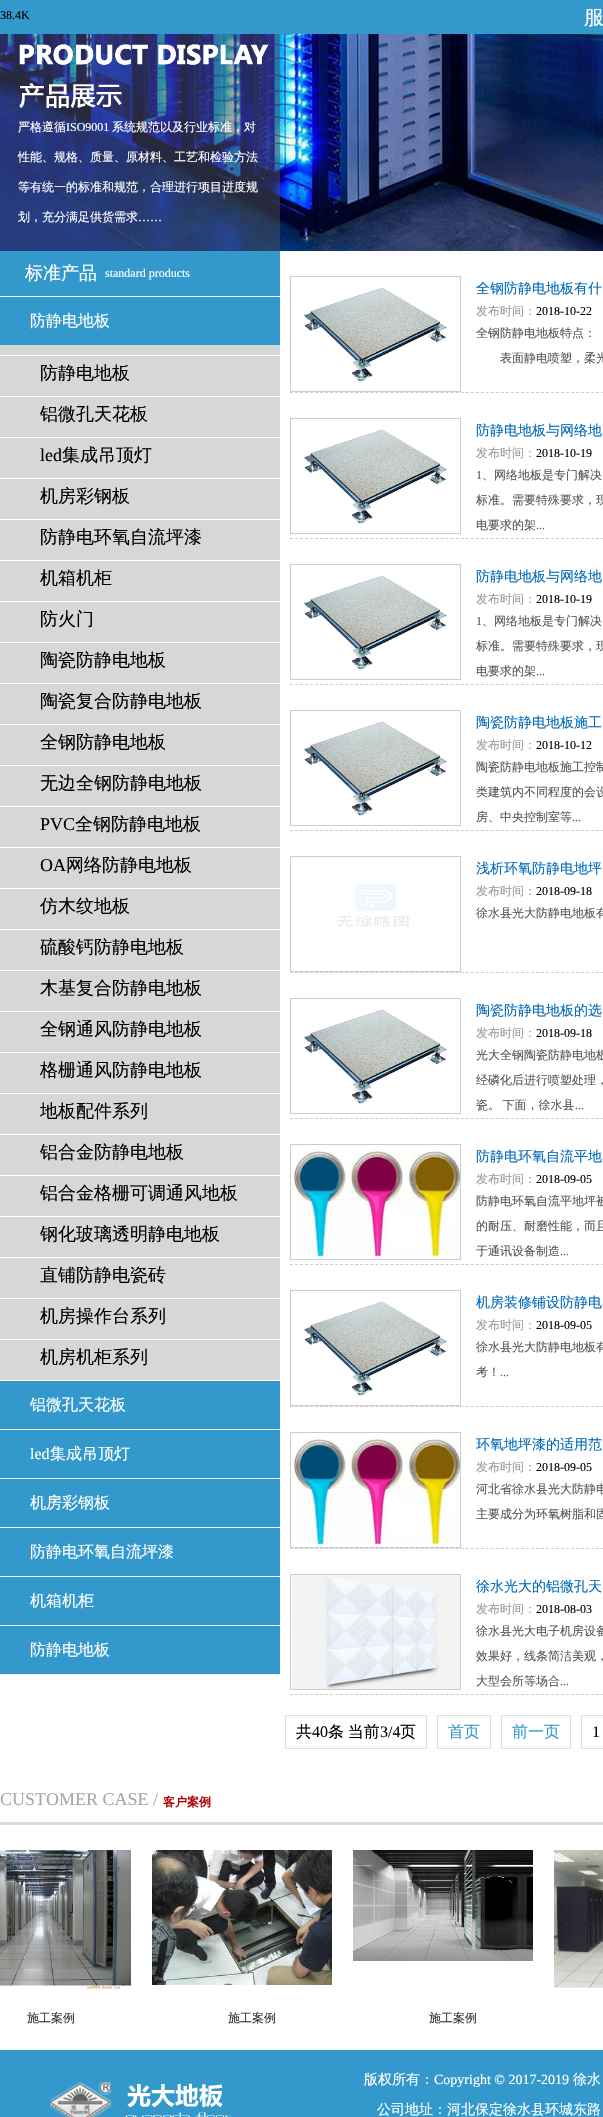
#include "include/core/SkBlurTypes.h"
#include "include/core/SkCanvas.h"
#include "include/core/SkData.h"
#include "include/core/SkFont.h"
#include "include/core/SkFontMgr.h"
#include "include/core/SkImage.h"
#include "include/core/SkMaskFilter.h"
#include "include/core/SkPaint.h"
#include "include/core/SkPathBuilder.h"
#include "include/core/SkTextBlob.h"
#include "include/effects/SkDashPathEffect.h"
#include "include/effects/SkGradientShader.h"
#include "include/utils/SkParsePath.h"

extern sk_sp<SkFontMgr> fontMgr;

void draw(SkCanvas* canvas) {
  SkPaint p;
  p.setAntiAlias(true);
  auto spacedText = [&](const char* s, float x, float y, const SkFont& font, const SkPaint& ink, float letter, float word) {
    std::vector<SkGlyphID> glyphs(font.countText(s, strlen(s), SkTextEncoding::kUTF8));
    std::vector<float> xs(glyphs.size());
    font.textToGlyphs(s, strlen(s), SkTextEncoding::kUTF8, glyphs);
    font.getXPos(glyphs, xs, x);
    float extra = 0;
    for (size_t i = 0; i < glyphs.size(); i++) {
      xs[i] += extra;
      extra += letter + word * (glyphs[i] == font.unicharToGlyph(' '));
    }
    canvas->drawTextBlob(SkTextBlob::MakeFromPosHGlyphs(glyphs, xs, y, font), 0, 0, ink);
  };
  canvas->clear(SK_ColorWHITE);
  p.setColor(SkColorSetRGB(51, 153, 204));
  canvas->drawRect(SkRect::MakeLTRB(0, 0, 603, 34), p);
  canvas->drawImageRect(SkImages::DeferredFromEncodedData(SkData::MakeFromFileName("images/1.png")), SkRect::MakeLTRB(0, 34, 603, 251), SkSamplingOptions());
  canvas->drawImageRect(SkImages::DeferredFromEncodedData(SkData::MakeFromFileName("images/2.png")), SkRect::MakeLTRB(0, 34, 280, 251), SkSamplingOptions());
  p.setColor(SkColorSetRGB(215, 215, 215));
  canvas->drawRect(SkRect::MakeLTRB(0, 345, 280, 1380), p);
  p.setColor(SkColorSetRGB(51, 153, 204));
  canvas->drawRect(SkRect::MakeLTRB(0, 251, 280, 296), p);
  canvas->drawRect(SkRect::MakeLTRB(0, 297, 280, 345), p);
  p.setColor(SK_ColorWHITE);
  canvas->drawRect(SkRect::MakeLTRB(0, 355, 280, 356), p);
  canvas->drawRect(SkRect::MakeLTRB(0, 396, 280, 397), p);
  canvas->drawRect(SkRect::MakeLTRB(0, 437, 280, 438), p);
  canvas->drawRect(SkRect::MakeLTRB(0, 478, 280, 479), p);
  canvas->drawRect(SkRect::MakeLTRB(0, 519, 280, 520), p);
  canvas->drawRect(SkRect::MakeLTRB(0, 560, 280, 561), p);
  canvas->drawRect(SkRect::MakeLTRB(0, 601, 280, 602), p);
  canvas->drawRect(SkRect::MakeLTRB(0, 642, 280, 643), p);
  canvas->drawRect(SkRect::MakeLTRB(0, 683, 280, 684), p);
  canvas->drawRect(SkRect::MakeLTRB(0, 724, 280, 725), p);
  canvas->drawRect(SkRect::MakeLTRB(0, 765, 280, 766), p);
  canvas->drawRect(SkRect::MakeLTRB(0, 806, 280, 807), p);
  canvas->drawRect(SkRect::MakeLTRB(0, 847, 280, 848), p);
  canvas->drawRect(SkRect::MakeLTRB(0, 888, 280, 889), p);
  canvas->drawRect(SkRect::MakeLTRB(0, 929, 280, 930), p);
  canvas->drawRect(SkRect::MakeLTRB(0, 970, 280, 971), p);
  canvas->drawRect(SkRect::MakeLTRB(0, 1011, 280, 1012), p);
  canvas->drawRect(SkRect::MakeLTRB(0, 1052, 280, 1053), p);
  canvas->drawRect(SkRect::MakeLTRB(0, 1093, 280, 1094), p);
  canvas->drawRect(SkRect::MakeLTRB(0, 1134, 280, 1135), p);
  canvas->drawRect(SkRect::MakeLTRB(0, 1175, 280, 1176), p);
  canvas->drawRect(SkRect::MakeLTRB(0, 1216, 280, 1217), p);
  canvas->drawRect(SkRect::MakeLTRB(0, 1257, 280, 1258), p);
  canvas->drawRect(SkRect::MakeLTRB(0, 1298, 280, 1299), p);
  canvas->drawRect(SkRect::MakeLTRB(0, 1339, 280, 1340), p);
  p.setColor(SkColorSetRGB(51, 153, 204));
  canvas->drawRect(SkRect::MakeLTRB(0, 1381, 280, 1429), p);
  canvas->drawRect(SkRect::MakeLTRB(0, 1430, 280, 1478), p);
  canvas->drawRect(SkRect::MakeLTRB(0, 1479, 280, 1527), p);
  canvas->drawRect(SkRect::MakeLTRB(0, 1528, 280, 1576), p);
  canvas->drawRect(SkRect::MakeLTRB(0, 1577, 280, 1625), p);
  canvas->drawRect(SkRect::MakeLTRB(0, 1626, 280, 1674), p);
  p.setStyle(SkPaint::kStroke_Style);
  p.setStrokeWidth(1);
  p.setColor(SkColorSetRGB(204, 204, 204));
  p.setPathEffect(SkDashPathEffect::Make({{3, 2.02f}}, 0));
  canvas->drawPath(SkPathBuilder().moveTo(290, 392.5f).lineTo(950, 392.5f).detach(), p);
  p.setPathEffect(nullptr);
  canvas->drawRect(SkRect::MakeLTRB(290.5f, 276.5f, 460.5f, 391.5f), p);
  canvas->drawImageRect(SkImages::DeferredFromEncodedData(SkData::MakeFromFileName("images/3.png")), SkRect::MakeLTRB(304, 287, 448, 382), SkSamplingOptions());
  p.setPathEffect(SkDashPathEffect::Make({{3, 2.02f}}, 0));
  canvas->drawPath(SkPathBuilder().moveTo(290, 538.5f).lineTo(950, 538.5f).detach(), p);
  p.setPathEffect(nullptr);
  canvas->drawRect(SkRect::MakeLTRB(290.5f, 418.5f, 460.5f, 533.5f), p);
  canvas->drawImageRect(SkImages::DeferredFromEncodedData(SkData::MakeFromFileName("images/3.png")), SkRect::MakeLTRB(304, 429, 448, 524), SkSamplingOptions());
  p.setPathEffect(SkDashPathEffect::Make({{3, 2.02f}}, 0));
  canvas->drawPath(SkPathBuilder().moveTo(290, 684.5f).lineTo(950, 684.5f).detach(), p);
  p.setPathEffect(nullptr);
  canvas->drawRect(SkRect::MakeLTRB(290.5f, 564.5f, 460.5f, 679.5f), p);
  canvas->drawImageRect(SkImages::DeferredFromEncodedData(SkData::MakeFromFileName("images/3.png")), SkRect::MakeLTRB(304, 575, 448, 670), SkSamplingOptions());
  p.setPathEffect(SkDashPathEffect::Make({{3, 2.02f}}, 0));
  canvas->drawPath(SkPathBuilder().moveTo(290, 830.5f).lineTo(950, 830.5f).detach(), p);
  p.setPathEffect(nullptr);
  canvas->drawRect(SkRect::MakeLTRB(290.5f, 710.5f, 460.5f, 825.5f), p);
  canvas->drawImageRect(SkImages::DeferredFromEncodedData(SkData::MakeFromFileName("images/3.png")), SkRect::MakeLTRB(304, 721, 448, 816), SkSamplingOptions());
  p.setPathEffect(SkDashPathEffect::Make({{3, 2.02f}}, 0));
  canvas->drawPath(SkPathBuilder().moveTo(290, 972.5f).lineTo(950, 972.5f).detach(), p);
  p.setPathEffect(nullptr);
  canvas->drawRect(SkRect::MakeLTRB(290.5f, 856.5f, 460.5f, 971.5f), p);
  canvas->drawImageRect(SkImages::DeferredFromEncodedData(SkData::MakeFromFileName("images/4.png")), SkRect::MakeLTRB(337, 884, 409, 927), SkSamplingOptions());
  p.setPathEffect(SkDashPathEffect::Make({{3, 2.02f}}, 0));
  canvas->drawPath(SkPathBuilder().moveTo(290, 1118.5f).lineTo(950, 1118.5f).detach(), p);
  p.setPathEffect(nullptr);
  canvas->drawRect(SkRect::MakeLTRB(290.5f, 998.5f, 460.5f, 1113.5f), p);
  canvas->drawImageRect(SkImages::DeferredFromEncodedData(SkData::MakeFromFileName("images/3.png")), SkRect::MakeLTRB(304, 1009, 448, 1104), SkSamplingOptions());
  p.setPathEffect(SkDashPathEffect::Make({{3, 2.02f}}, 0));
  canvas->drawPath(SkPathBuilder().moveTo(290, 1264.5f).lineTo(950, 1264.5f).detach(), p);
  p.setPathEffect(nullptr);
  canvas->drawRect(SkRect::MakeLTRB(290.5f, 1144.5f, 460.5f, 1259.5f), p);
  canvas->drawImageRect(SkImages::DeferredFromEncodedData(SkData::MakeFromFileName("images/5.png")), SkRect::MakeLTRB(292, 1146, 460, 1259), SkSamplingOptions());
  p.setPathEffect(SkDashPathEffect::Make({{3, 2.02f}}, 0));
  canvas->drawPath(SkPathBuilder().moveTo(290, 1406.5f).lineTo(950, 1406.5f).detach(), p);
  p.setPathEffect(nullptr);
  canvas->drawRect(SkRect::MakeLTRB(290.5f, 1290.5f, 460.5f, 1405.5f), p);
  canvas->drawImageRect(SkImages::DeferredFromEncodedData(SkData::MakeFromFileName("images/3.png")), SkRect::MakeLTRB(304, 1301, 448, 1396), SkSamplingOptions());
  p.setPathEffect(SkDashPathEffect::Make({{3, 2.02f}}, 0));
  canvas->drawPath(SkPathBuilder().moveTo(290, 1548.5f).lineTo(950, 1548.5f).detach(), p);
  p.setPathEffect(nullptr);
  canvas->drawRect(SkRect::MakeLTRB(290.5f, 1432.5f, 460.5f, 1547.5f), p);
  canvas->drawImageRect(SkImages::DeferredFromEncodedData(SkData::MakeFromFileName("images/5.png")), SkRect::MakeLTRB(292, 1434, 460, 1547), SkSamplingOptions());
  p.setPathEffect(SkDashPathEffect::Make({{3, 2.02f}}, 0));
  canvas->drawPath(SkPathBuilder().moveTo(290, 1694.5f).lineTo(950, 1694.5f).detach(), p);
  p.setPathEffect(nullptr);
  canvas->drawRect(SkRect::MakeLTRB(290.5f, 1574.5f, 460.5f, 1689.5f), p);
  canvas->drawImageRect(SkImages::DeferredFromEncodedData(SkData::MakeFromFileName("images/6.png")), SkRect::MakeLTRB(292, 1575, 460, 1689), SkSamplingOptions());
  p.setColor(SkColorSetRGB(222, 222, 222));
  canvas->drawRect(SkRect::MakeLTRB(285.5f, 1715.5f, 426.5f, 1748.5f), p);
  canvas->drawRect(SkRect::MakeLTRB(437.5f, 1715.5f, 490.5f, 1748.5f), p);
  canvas->drawRect(SkRect::MakeLTRB(501.5f, 1715.5f, 570.5f, 1748.5f), p);
  canvas->drawRect(SkRect::MakeLTRB(581.5f, 1715.5f, 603.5f, 1748.5f), p);
  p.setStyle(SkPaint::kFill_Style);
  p.setColor(SkColorSetRGB(221, 217, 217));
  canvas->drawRect(SkRect::MakeLTRB(0, 1822, 603, 1825), p);
  canvas->drawImageRect(SkImages::DeferredFromEncodedData(SkData::MakeFromFileName("images/7.png")), SkRect::MakeLTRB(554, 1850, 603, 1988), SkSamplingOptions());
  canvas->drawImageRect(SkImages::DeferredFromEncodedData(SkData::MakeFromFileName("images/8.png")), SkRect::MakeLTRB(0, 1850, 131, 1990), SkSamplingOptions());
  canvas->drawImageRect(SkImages::DeferredFromEncodedData(SkData::MakeFromFileName("images/9.png")), SkRect::MakeLTRB(152, 1850, 332, 1985), SkSamplingOptions());
  canvas->drawImageRect(SkImages::DeferredFromEncodedData(SkData::MakeFromFileName("images/10.png")), SkRect::MakeLTRB(353, 1850, 533, 1961), SkSamplingOptions());
  p.setColor(SkColorSetRGB(51, 153, 204));
  canvas->drawRect(SkRect::MakeLTRB(0, 2050, 603, 2117), p);
  canvas->drawImageRect(SkImages::DeferredFromEncodedData(SkData::MakeFromFileName("images/11.png")), SkRect::MakeLTRB(50, 2082, 232, 2117), SkSamplingOptions());
  SkFont font1(fontMgr->matchFamilyStyle("Liberation Serif", SkFontStyle::Normal()), 12);
  font1.setSubpixel(true);
  p.setColor(SK_ColorBLACK);
  canvas->drawString("38.4K", 0, 19, font1, p);
  SkFont font2(fontMgr->matchFamilyStyle("WenQuanYi Zen Hei", SkFontStyle(500, SkFontStyle::kNormal_Width, SkFontStyle::kUpright_Slant)), 20);
  font2.setSubpixel(true);
  p.setColor(SK_ColorWHITE);
  canvas->drawString("服", 584, 24, font2, p);
  SkFont font3(fontMgr->matchFamilyStyle("WenQuanYi Zen Hei", SkFontStyle(500, SkFontStyle::kNormal_Width, SkFontStyle::kUpright_Slant)), 12);
  font3.setSubpixel(true);
  canvas->drawString("严格遵循", 18, 131, font3, p);
  canvas->drawString("ISO9001", 66, 131, font1, p);
  canvas->drawString("系统规范以及行业标准，对", 112, 131, font3, p);
  canvas->drawString("性能、规格、质量、原材料、工艺和检验方法", 18, 161, font3, p);
  canvas->drawString("等有统一的标准和规范，合理进行项目进度规", 18, 191, font3, p);
  canvas->drawString("划，充分满足供货需求", 18, 221, font3, p);
  canvas->drawString("……", 138, 221, font1, p);
  SkFont font4(fontMgr->matchFamilyStyle("WenQuanYi Zen Hei", SkFontStyle(500, SkFontStyle::kNormal_Width, SkFontStyle::kUpright_Slant)), 18);
  font4.setSubpixel(true);
  canvas->drawString("标准产品", 25, 279, font4, p);
  canvas->drawString("standard products", 105, 277, font1, p);
  SkFont font5(fontMgr->matchFamilyStyle("WenQuanYi Zen Hei", SkFontStyle(500, SkFontStyle::kNormal_Width, SkFontStyle::kUpright_Slant)), 16);
  font5.setSubpixel(true);
  canvas->drawString("防静电地板", 30, 326, font5, p);
  p.setColor(SK_ColorBLACK);
  canvas->drawString("防静电地板", 40, 379, font4, p);
  canvas->drawString("铝微孔天花板", 40, 420, font4, p);
  SkFont font6(fontMgr->matchFamilyStyle("Liberation Serif", SkFontStyle::Normal()), 18);
  font6.setSubpixel(true);
  canvas->drawString("led", 40, 461, font6, p);
  canvas->drawString("集成吊顶灯", 62, 461, font4, p);
  canvas->drawString("机房彩钢板", 40, 502, font4, p);
  canvas->drawString("防静电环氧自流坪漆", 40, 543, font4, p);
  canvas->drawString("机箱机柜", 40, 584, font4, p);
  canvas->drawString("防火门", 40, 625, font4, p);
  canvas->drawString("陶瓷防静电地板", 40, 666, font4, p);
  canvas->drawString("陶瓷复合防静电地板", 40, 707, font4, p);
  canvas->drawString("全钢防静电地板", 40, 748, font4, p);
  canvas->drawString("无边全钢防静电地板", 40, 789, font4, p);
  canvas->drawString("PVC", 40, 830, font6, p);
  canvas->drawString("全钢防静电地板", 75, 830, font4, p);
  canvas->drawString("OA", 40, 871, font6, p);
  canvas->drawString("网络防静电地板", 66, 871, font4, p);
  canvas->drawString("仿木纹地板", 40, 912, font4, p);
  canvas->drawString("硫酸钙防静电地板", 40, 953, font4, p);
  canvas->drawString("木基复合防静电地板", 40, 994, font4, p);
  canvas->drawString("全钢通风防静电地板", 40, 1035, font4, p);
  canvas->drawString("格栅通风防静电地板", 40, 1076, font4, p);
  canvas->drawString("地板配件系列", 40, 1117, font4, p);
  canvas->drawString("铝合金防静电地板", 40, 1158, font4, p);
  canvas->drawString("铝合金格栅可调通风地板", 40, 1199, font4, p);
  canvas->drawString("钢化玻璃透明静电地板", 40, 1240, font4, p);
  canvas->drawString("直铺防静电瓷砖", 40, 1281, font4, p);
  canvas->drawString("机房操作台系列", 40, 1322, font4, p);
  canvas->drawString("机房机柜系列", 40, 1363, font4, p);
  p.setColor(SK_ColorWHITE);
  canvas->drawString("铝微孔天花板", 30, 1410, font5, p);
  SkFont font7(fontMgr->matchFamilyStyle("Liberation Serif", SkFontStyle::Normal()), 16);
  font7.setSubpixel(true);
  canvas->drawString("led", 30, 1459, font7, p);
  canvas->drawString("集成吊顶灯", 50, 1459, font5, p);
  canvas->drawString("机房彩钢板", 30, 1508, font5, p);
  canvas->drawString("防静电环氧自流坪漆", 30, 1557, font5, p);
  canvas->drawString("机箱机柜", 30, 1606, font5, p);
  canvas->drawString("防静电地板", 30, 1655, font5, p);
  SkFont font8(fontMgr->matchFamilyStyle("WenQuanYi Zen Hei", SkFontStyle(500, SkFontStyle::kNormal_Width, SkFontStyle::kUpright_Slant)), 14);
  font8.setSubpixel(true);
  p.setColor(SkColorSetRGB(0, 106, 188));
  canvas->drawString("全钢防静电地板有什", 476, 293, font8, p);
  p.setColor(SkColorSetRGB(153, 153, 153));
  canvas->drawString("发布时间：", 476, 315, font3, p);
  p.setColor(SK_ColorBLACK);
  canvas->drawString("2018-10-22", 536, 315, font1, p);
  p.setColor(SkColorSetRGB(85, 85, 85));
  canvas->drawString("全钢防静电地板特点：", 476, 337, font3, p);
  canvas->drawString("表面静电喷塑，柔光", 500, 362, font3, p);
  p.setColor(SkColorSetRGB(0, 106, 188));
  canvas->drawString("防静电地板与网络地", 476, 435, font8, p);
  p.setColor(SkColorSetRGB(153, 153, 153));
  canvas->drawString("发布时间：", 476, 457, font3, p);
  p.setColor(SK_ColorBLACK);
  canvas->drawString("2018-10-19", 536, 457, font1, p);
  p.setColor(SkColorSetRGB(85, 85, 85));
  canvas->drawString("1", 476, 479, font1, p);
  canvas->drawString("、网络地板是专门解决", 482, 479, font3, p);
  canvas->drawString("标准。需要特殊要求，现", 476, 504, font3, p);
  canvas->drawString("电要求的架", 476, 529, font3, p);
  canvas->drawString("...", 536, 529, font1, p);
  p.setColor(SkColorSetRGB(0, 106, 188));
  canvas->drawString("防静电地板与网络地", 476, 581, font8, p);
  p.setColor(SkColorSetRGB(153, 153, 153));
  canvas->drawString("发布时间：", 476, 603, font3, p);
  p.setColor(SK_ColorBLACK);
  canvas->drawString("2018-10-19", 536, 603, font1, p);
  p.setColor(SkColorSetRGB(85, 85, 85));
  canvas->drawString("1", 476, 625, font1, p);
  canvas->drawString("、网络地板是专门解决", 482, 625, font3, p);
  canvas->drawString("标准。需要特殊要求，现", 476, 650, font3, p);
  canvas->drawString("电要求的架", 476, 675, font3, p);
  canvas->drawString("...", 536, 675, font1, p);
  p.setColor(SkColorSetRGB(0, 106, 188));
  canvas->drawString("陶瓷防静电地板施工", 476, 727, font8, p);
  p.setColor(SkColorSetRGB(153, 153, 153));
  canvas->drawString("发布时间：", 476, 749, font3, p);
  p.setColor(SK_ColorBLACK);
  canvas->drawString("2018-10-12", 536, 749, font1, p);
  p.setColor(SkColorSetRGB(85, 85, 85));
  spacedText("陶瓷防静电地板施工控制", 476, 771, font3, p, 0, -1);
  canvas->drawString("类建筑内不同程度的会设", 476, 796, font3, p);
  canvas->drawString("房、中央控制室等", 476, 821, font3, p);
  canvas->drawString("...", 572, 821, font1, p);
  p.setColor(SkColorSetRGB(0, 106, 188));
  canvas->drawString("浅析环氧防静电地坪", 476, 873, font8, p);
  p.setColor(SkColorSetRGB(153, 153, 153));
  canvas->drawString("发布时间：", 476, 895, font3, p);
  p.setColor(SK_ColorBLACK);
  canvas->drawString("2018-09-18", 536, 895, font1, p);
  p.setColor(SkColorSetRGB(85, 85, 85));
  canvas->drawString("徐水县光大防静电地板有", 476, 917, font3, p);
  p.setColor(SkColorSetRGB(0, 106, 188));
  canvas->drawString("陶瓷防静电地板的选", 476, 1015, font8, p);
  p.setColor(SkColorSetRGB(153, 153, 153));
  canvas->drawString("发布时间：", 476, 1037, font3, p);
  p.setColor(SK_ColorBLACK);
  canvas->drawString("2018-09-18", 536, 1037, font1, p);
  p.setColor(SkColorSetRGB(85, 85, 85));
  canvas->drawString("光大全钢陶瓷防静电地板", 476, 1059, font3, p);
  canvas->drawString("经磷化后进行喷塑处理，", 476, 1084, font3, p);
  spacedText("瓷。 下面，徐水县", 476, 1109, font3, p, 0, -1);
  canvas->drawString("...", 575, 1109, font1, p);
  p.setColor(SkColorSetRGB(0, 106, 188));
  canvas->drawString("防静电环氧自流平地", 476, 1161, font8, p);
  p.setColor(SkColorSetRGB(153, 153, 153));
  canvas->drawString("发布时间：", 476, 1183, font3, p);
  p.setColor(SK_ColorBLACK);
  canvas->drawString("2018-09-05", 536, 1183, font1, p);
  p.setColor(SkColorSetRGB(85, 85, 85));
  canvas->drawString("防静电环氧自流平地坪被", 476, 1205, font3, p);
  canvas->drawString("的耐压、耐磨性能，而且", 476, 1230, font3, p);
  canvas->drawString("于通讯设备制造", 476, 1255, font3, p);
  canvas->drawString("...", 560, 1255, font1, p);
  p.setColor(SkColorSetRGB(0, 106, 188));
  canvas->drawString("机房装修铺设防静电", 476, 1307, font8, p);
  p.setColor(SkColorSetRGB(153, 153, 153));
  canvas->drawString("发布时间：", 476, 1329, font3, p);
  p.setColor(SK_ColorBLACK);
  canvas->drawString("2018-09-05", 536, 1329, font1, p);
  p.setColor(SkColorSetRGB(85, 85, 85));
  canvas->drawString("徐水县光大防静电地板有", 476, 1351, font3, p);
  canvas->drawString("考！", 476, 1376, font3, p);
  canvas->drawString("...", 500, 1376, font1, p);
  p.setColor(SkColorSetRGB(0, 106, 188));
  canvas->drawString("环氧地坪漆的适用范", 476, 1449, font8, p);
  p.setColor(SkColorSetRGB(153, 153, 153));
  canvas->drawString("发布时间：", 476, 1471, font3, p);
  p.setColor(SK_ColorBLACK);
  canvas->drawString("2018-09-05", 536, 1471, font1, p);
  p.setColor(SkColorSetRGB(85, 85, 85));
  canvas->drawString("河北省徐水县光大防静电", 476, 1493, font3, p);
  canvas->drawString("主要成分为环氧树脂和固", 476, 1518, font3, p);
  p.setColor(SkColorSetRGB(0, 106, 188));
  canvas->drawString("徐水光大的铝微孔天", 476, 1591, font8, p);
  p.setColor(SkColorSetRGB(153, 153, 153));
  canvas->drawString("发布时间：", 476, 1613, font3, p);
  p.setColor(SK_ColorBLACK);
  canvas->drawString("2018-08-03", 536, 1613, font1, p);
  p.setColor(SkColorSetRGB(85, 85, 85));
  canvas->drawString("徐水县光大电子机房设备", 476, 1635, font3, p);
  canvas->drawString("效果好，线条简洁美观，", 476, 1660, font3, p);
  canvas->drawString("大型会所等场合", 476, 1685, font3, p);
  canvas->drawString("...", 560, 1685, font1, p);
  p.setColor(SK_ColorBLACK);
  canvas->drawString("共", 296, 1737, font5, p);
  canvas->drawString("40", 312, 1737, font7, p);
  spacedText("条 当前", 328, 1737, font5, p, 0, -1);
  canvas->drawString("3/4", 380, 1737, font7, p);
  canvas->drawString("页", 400, 1737, font5, p);
  p.setColor(SkColorSetRGB(51, 153, 204));
  canvas->drawString("首页", 448, 1737, font5, p);
  canvas->drawString("前一页", 512, 1737, font5, p);
  p.setColor(SK_ColorBLACK);
  canvas->drawString("1", 592, 1737, font7, p);
  p.setColor(SkColorSetRGB(171, 165, 165));
  canvas->drawString("CUSTOMER CASE /", 0, 1805, font6, p);
  SkFont font9(fontMgr->matchFamilyStyle("WenQuanYi Zen Hei", SkFontStyle::Bold()), 12);
  font9.setSubpixel(true);
  p.setColor(SkColorSetRGB(173, 0, 0));
  canvas->drawString("客户案例", 163, 1806, font9, p);
  p.setColor(SkColorSetRGB(51, 51, 51));
  canvas->drawString("施工案例", 27, 2022, font3, p);
  canvas->drawString("施工案例", 228, 2022, font3, p);
  canvas->drawString("施工案例", 429, 2022, font3, p);
  p.setColor(SK_ColorWHITE);
  canvas->drawString("版权所有：", 364, 2084, font8, p);
  SkFont font10(fontMgr->matchFamilyStyle("Liberation Serif", SkFontStyle::Normal()), 14);
  font10.setSubpixel(true);
  canvas->drawString("Copyright © 2017-2019", 434, 2084, font10, p);
  canvas->drawString("徐水", 573, 2084, font8, p);
  canvas->drawString("公司地址：河北保定徐水县环城东路", 377, 2114, font8, p);
}
